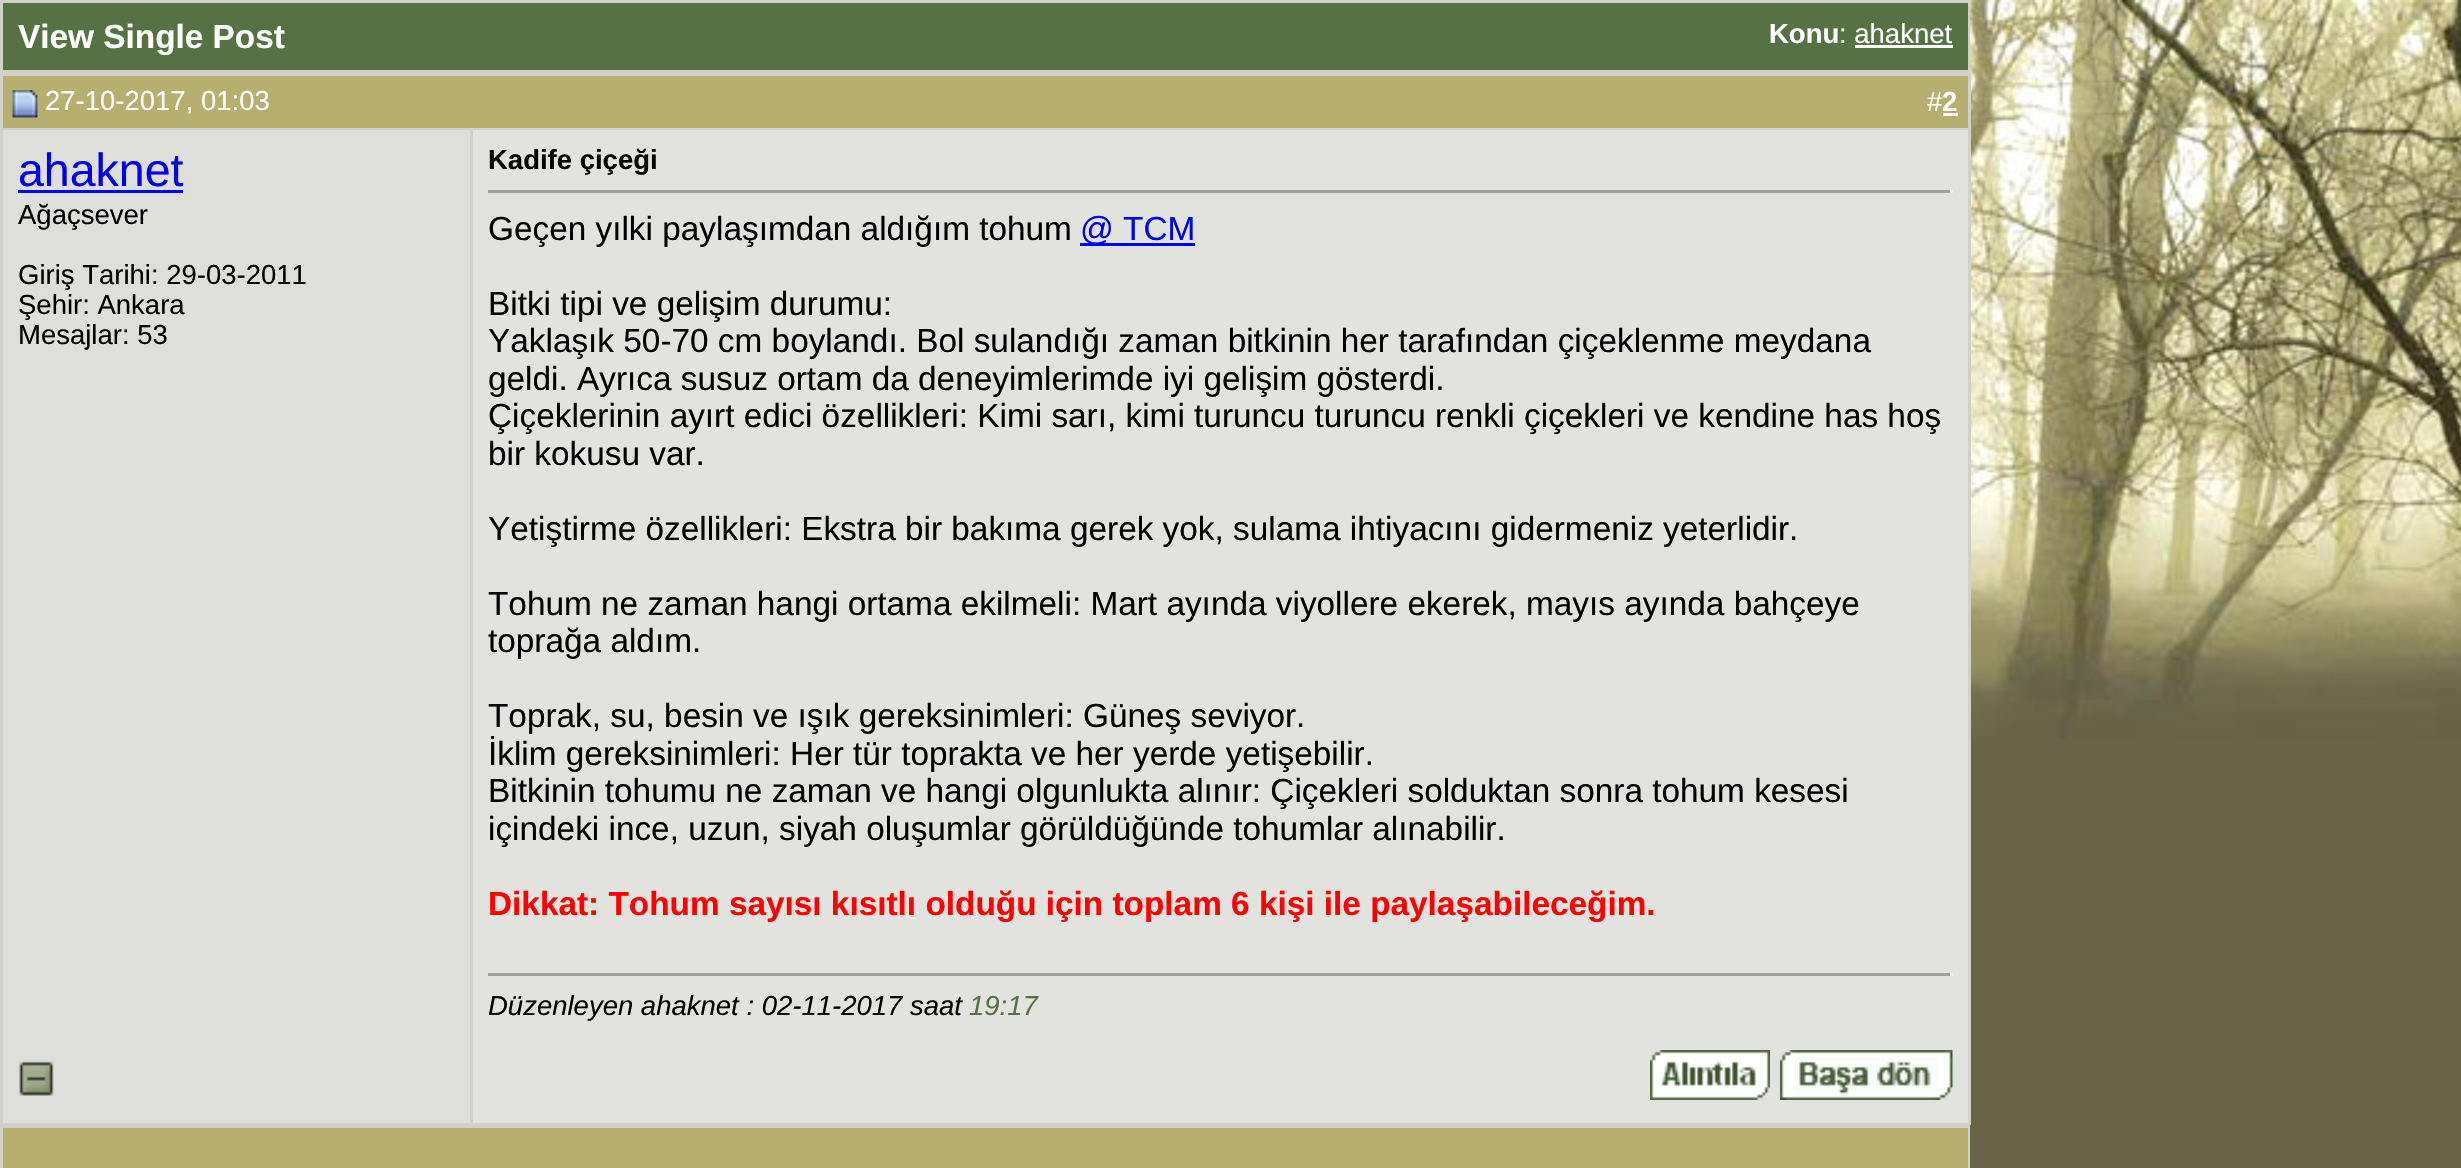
#include "include/core/SkBlurTypes.h"
#include "include/core/SkCanvas.h"
#include "include/core/SkData.h"
#include "include/core/SkFont.h"
#include "include/core/SkFontMgr.h"
#include "include/core/SkImage.h"
#include "include/core/SkMaskFilter.h"
#include "include/core/SkPaint.h"
#include "include/core/SkPathBuilder.h"
#include "include/core/SkTextBlob.h"
#include "include/effects/SkDashPathEffect.h"
#include "include/effects/SkGradientShader.h"
#include "include/utils/SkParsePath.h"

extern sk_sp<SkFontMgr> fontMgr;

void draw(SkCanvas* canvas) {
  SkPaint p;
  p.setAntiAlias(true);
  canvas->clear(SkColorSetRGB(103, 100, 71));
  canvas->drawImageRect(SkImages::DeferredFromEncodedData(SkData::MakeFromFileName("images/1.png")), SkRect::MakeLTRB(1970, 0, 2461, 739), SkSamplingOptions());
  p.setColor(SkColorSetRGB(209, 209, 201));
  canvas->drawRect(SkRect::MakeLTRB(0, 0, 1970, 73), p);
  p.setColor(SkColorSetRGB(86, 113, 68));
  canvas->drawRect(SkRect::MakeLTRB(3, 3, 1968, 70), p);
  p.setColor(SK_ColorWHITE);
  canvas->drawRect(SkRect::MakeLTRB(1855, 45, 1953, 48), p);
  p.setColor(SkColorSetRGB(183, 175, 111));
  canvas->drawRect(SkRect::MakeLTRB(3, 76, 1968, 128), p);
  p.setColor(SkColorSetRGB(209, 209, 201));
  canvas->drawRect(SkRect::MakeLTRB(0, 73, 1970, 76), p);
  canvas->drawRect(SkRect::MakeLTRB(0, 128, 473, 130), p);
  canvas->drawRect(SkRect::MakeLTRB(0, 73, 3, 1035), p);
  canvas->drawImageRect(SkImages::DeferredFromEncodedData(SkData::MakeFromFileName("images/2.png")), SkRect::MakeLTRB(12, 90, 38, 118), SkSamplingOptions());
  canvas->drawRect(SkRect::MakeLTRB(1968, 73, 1971, 1125), p);
  canvas->drawRect(SkRect::MakeLTRB(473, 128, 1970, 130), p);
  p.setColor(SK_ColorWHITE);
  canvas->drawRect(SkRect::MakeLTRB(1943, 113, 1958, 116), p);
  p.setColor(SkColorSetRGB(222, 222, 219));
  canvas->drawRect(SkRect::MakeLTRB(3, 130, 470, 1123), p);
  p.setColor(SkColorSetRGB(209, 209, 201));
  canvas->drawRect(SkRect::MakeLTRB(470, 130, 473, 1125), p);
  p.setColor(SkColorSetRGB(0, 0, 238));
  canvas->drawRect(SkRect::MakeLTRB(18, 190, 183, 193), p);
  p.setColor(SkColorSetRGB(226, 226, 222));
  canvas->drawRect(SkRect::MakeLTRB(473, 130, 1968, 1123), p);
  p.setColor(SkColorSetRGB(159, 159, 159));
  canvas->drawRect(SkRect::MakeLTRB(488, 190, 1953, 193), p);
  p.setColor(SkColorSetRGB(238, 238, 238));
  canvas->drawRect(SkRect::MakeLTRB(1950, 190, 1953, 193), p);
  p.setColor(SkColorSetRGB(0, 0, 238));
  canvas->drawRect(SkRect::MakeLTRB(1080, 243, 1195, 246), p);
  p.setColor(SkColorSetRGB(159, 159, 159));
  canvas->drawRect(SkRect::MakeLTRB(488, 973, 1953, 976), p);
  p.setColor(SkColorSetRGB(238, 238, 238));
  canvas->drawRect(SkRect::MakeLTRB(1950, 973, 1953, 976), p);
  p.setColor(SkColorSetRGB(209, 209, 201));
  canvas->drawRect(SkRect::MakeLTRB(0, 1123, 1970, 1168), p);
  canvas->drawRect(SkRect::MakeLTRB(0, 1035, 3, 1125), p);
  canvas->drawImageRect(SkImages::DeferredFromEncodedData(SkData::MakeFromFileName("images/3.png")), SkRect::MakeLTRB(19, 1061, 54, 1096), SkSamplingOptions());
  canvas->drawImageRect(SkImages::DeferredFromEncodedData(SkData::MakeFromFileName("images/4.png")), SkRect::MakeLTRB(1650, 1050, 1770, 1100), SkSamplingOptions());
  canvas->drawImageRect(SkImages::DeferredFromEncodedData(SkData::MakeFromFileName("images/5.png")), SkRect::MakeLTRB(1780, 1050, 1953, 1100), SkSamplingOptions());
  p.setColor(SkColorSetRGB(183, 175, 111));
  canvas->drawRect(SkRect::MakeLTRB(3, 1128, 1968, 1168), p);
  SkFont font1(fontMgr->matchFamilyStyle("Liberation Sans", SkFontStyle::Bold()), 33.35f);
  font1.setSubpixel(true);
  p.setColor(SK_ColorWHITE);
  canvas->drawString("View Single Post", 18, 48, font1, p);
  SkFont font2(fontMgr->matchFamilyStyle("Liberation Sans", SkFontStyle::Bold()), 27.5f);
  font2.setSubpixel(true);
  canvas->drawString("Konu", 1769, 43, font2, p);
  SkFont font3(fontMgr->matchFamilyStyle("Liberation Sans", SkFontStyle::Normal()), 27.5f);
  font3.setSubpixel(true);
  canvas->drawString(": ahaknet", 1839, 43, font3, p);
  canvas->drawString("27-10-2017, 01:03", 45, 110, font3, p);
  canvas->drawString("#", 1927, 111, font3, p);
  canvas->drawString("2", 1942, 111, font2, p);
  SkFont font4(fontMgr->matchFamilyStyle("Liberation Sans", SkFontStyle::Normal()), 46.5f);
  font4.setSubpixel(true);
  p.setColor(SkColorSetRGB(0, 0, 238));
  canvas->drawString("ahaknet", 18, 186, font4, p);
  p.setColor(SK_ColorBLACK);
  canvas->drawString("Ağaçsever", 18, 224, font3, p);
  canvas->drawString("Giriş Tarihi: 29-03-2011", 18, 284, font3, p);
  canvas->drawString("Şehir: Ankara", 18, 314, font3, p);
  canvas->drawString("Mesajlar: 53", 18, 344, font3, p);
  canvas->drawString("Kadife çiçeği", 488, 169, font2, p);
  SkFont font5(fontMgr->matchFamilyStyle("Liberation Sans", SkFontStyle::Normal()), 33.35f);
  font5.setSubpixel(true);
  canvas->drawString("Geçen yılki paylaşımdan aldığım tohum", 488, 240, font5, p);
  p.setColor(SkColorSetRGB(0, 0, 238));
  canvas->drawString("@ TCM", 1080, 240, font5, p);
  p.setColor(SK_ColorBLACK);
  canvas->drawString("Bitki tipi ve gelişim durumu:", 488, 315, font5, p);
  canvas->drawString("Yaklaşık 50-70 cm boylandı. Bol sulandığı zaman bitkinin her tarafından çiçeklenme meydana", 488, 352, font5, p);
  canvas->drawString("geldi. Ayrıca susuz ortam da deneyimlerimde iyi gelişim gösterdi.", 488, 390, font5, p);
  canvas->drawString("Çiçeklerinin ayırt edici özellikleri: Kimi sarı, kimi turuncu turuncu renkli çiçekleri ve kendine has hoş", 488, 427, font5, p);
  canvas->drawString("bir kokusu var.", 488, 465, font5, p);
  canvas->drawString("Yetiştirme özellikleri: Ekstra bir bakıma gerek yok, sulama ihtiyacını gidermeniz yeterlidir.", 488, 540, font5, p);
  canvas->drawString("Tohum ne zaman hangi ortama ekilmeli: Mart ayında viyollere ekerek, mayıs ayında bahçeye", 488, 615, font5, p);
  canvas->drawString("toprağa aldım.", 488, 652, font5, p);
  canvas->drawString("Toprak, su, besin ve ışık gereksinimleri: Güneş seviyor.", 488, 727, font5, p);
  canvas->drawString("İklim gereksinimleri: Her tür toprakta ve her yerde yetişebilir.", 488, 765, font5, p);
  canvas->drawString("Bitkinin tohumu ne zaman ve hangi olgunlukta alınır: Çiçekleri solduktan sonra tohum kesesi", 488, 802, font5, p);
  canvas->drawString("içindeki ince, uzun, siyah oluşumlar görüldüğünde tohumlar alınabilir.", 488, 840, font5, p);
  p.setColor(SkColorSetRGB(255, 0, 0));
  canvas->drawString("Dikkat: Tohum sayısı kısıtlı olduğu için toplam 6 kişi ile paylaşabileceğim.", 488, 915, font1, p);
  SkFont font6(fontMgr->matchFamilyStyle("Liberation Sans", SkFontStyle::Italic()), 27.5f);
  font6.setSubpixel(true);
  p.setColor(SK_ColorBLACK);
  canvas->drawString("Düzenleyen ahaknet : 02-11-2017 saat", 488, 1015, font6, p);
  p.setColor(SkColorSetRGB(86, 113, 68));
  canvas->drawString("19:17", 969, 1015, font6, p);
}
